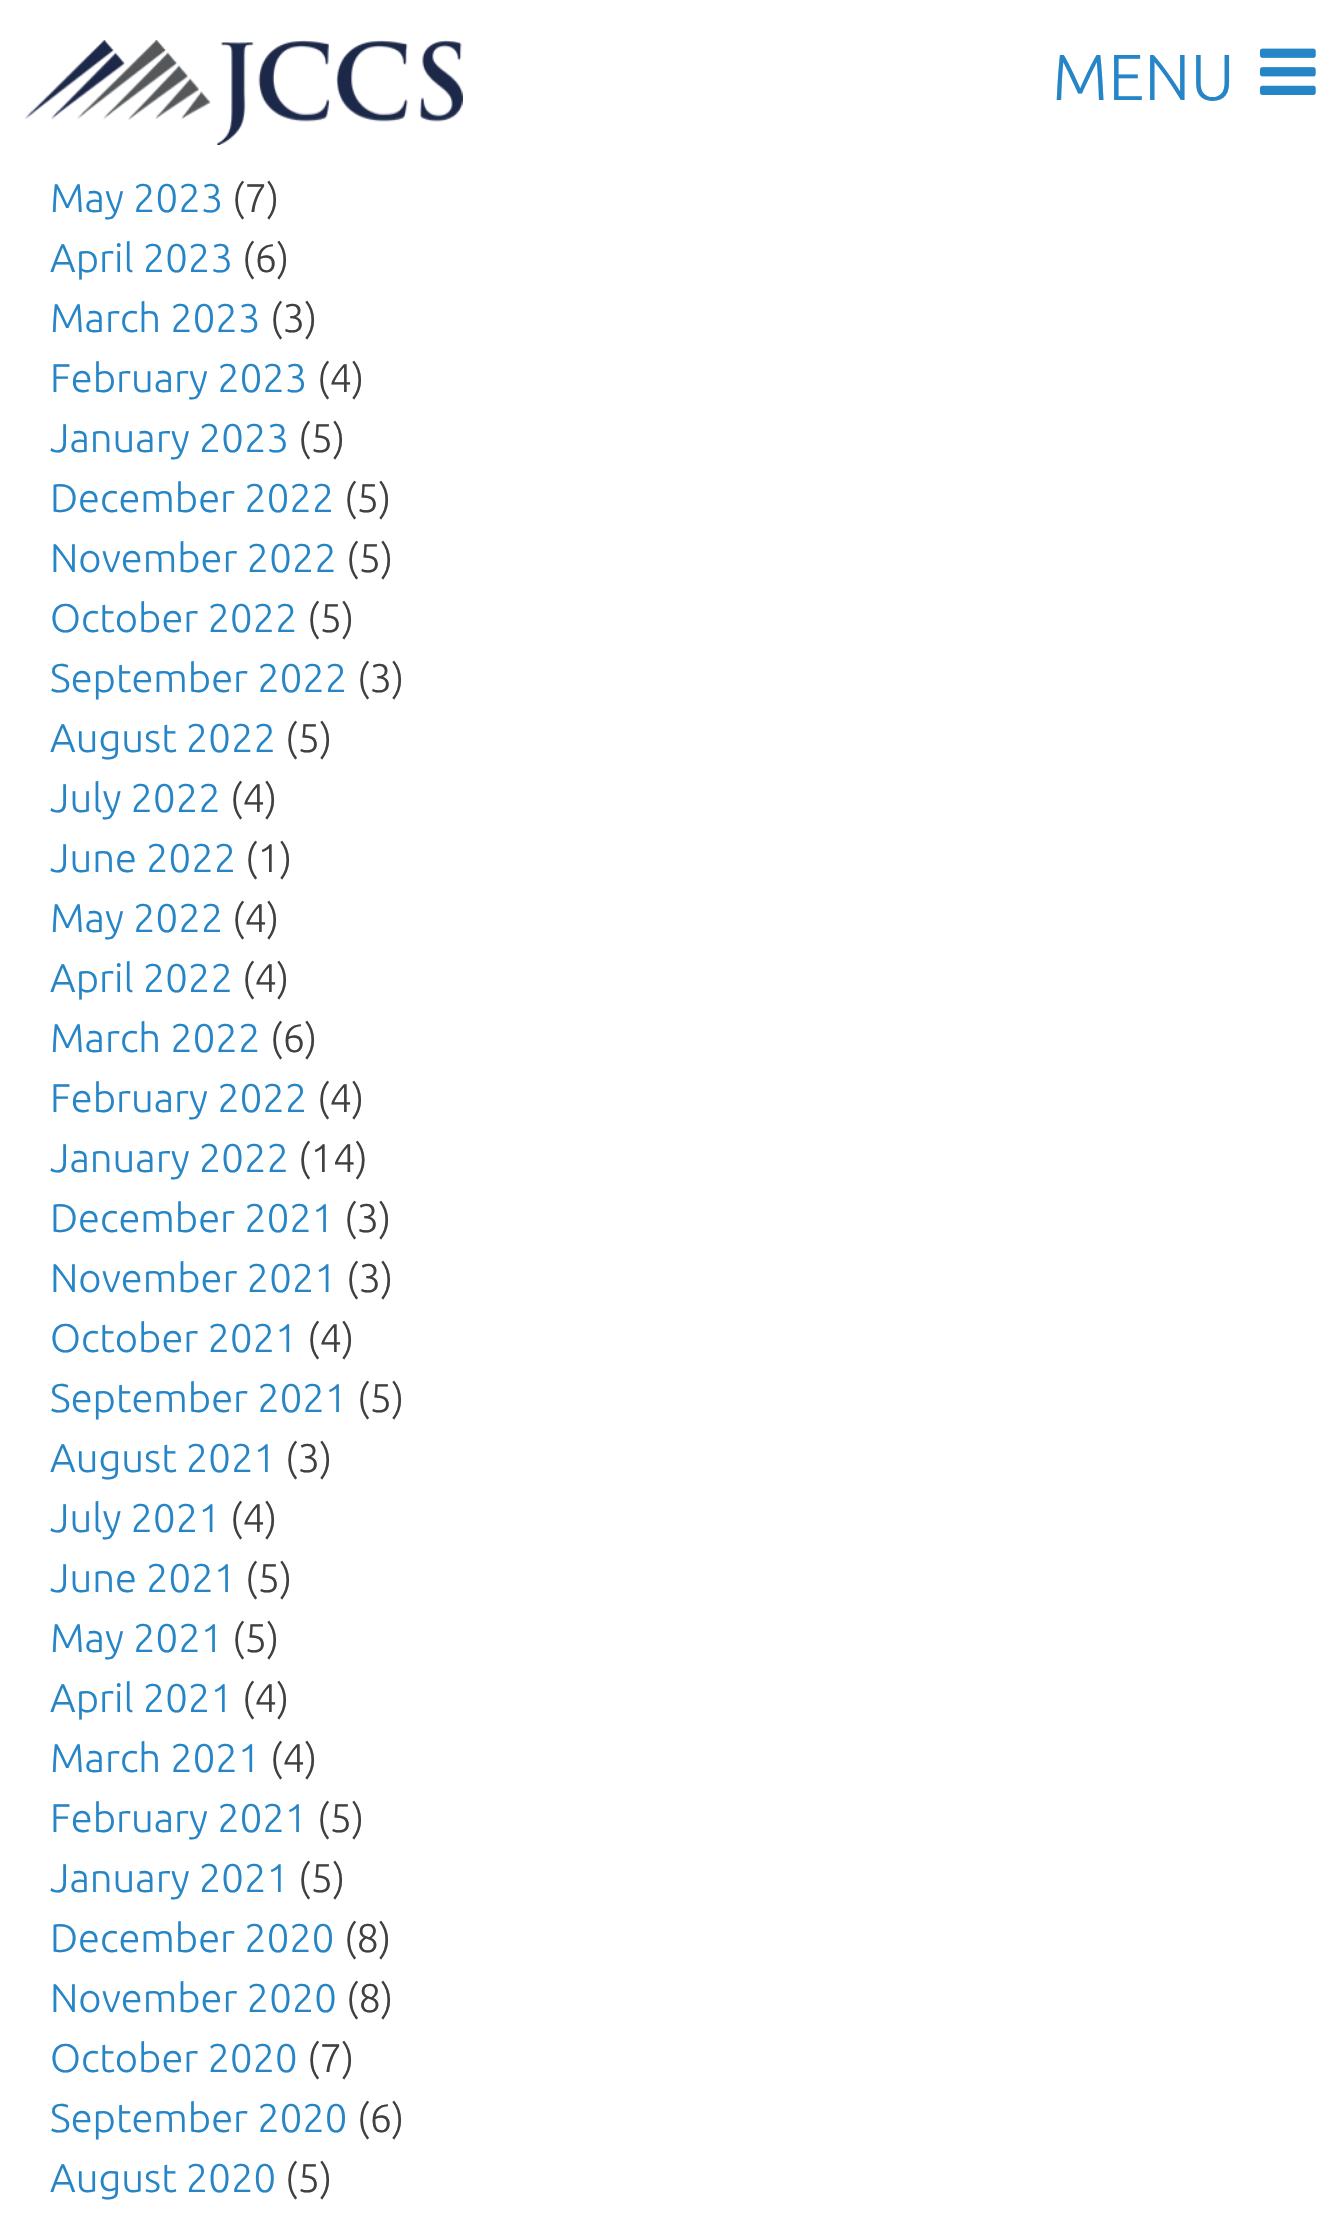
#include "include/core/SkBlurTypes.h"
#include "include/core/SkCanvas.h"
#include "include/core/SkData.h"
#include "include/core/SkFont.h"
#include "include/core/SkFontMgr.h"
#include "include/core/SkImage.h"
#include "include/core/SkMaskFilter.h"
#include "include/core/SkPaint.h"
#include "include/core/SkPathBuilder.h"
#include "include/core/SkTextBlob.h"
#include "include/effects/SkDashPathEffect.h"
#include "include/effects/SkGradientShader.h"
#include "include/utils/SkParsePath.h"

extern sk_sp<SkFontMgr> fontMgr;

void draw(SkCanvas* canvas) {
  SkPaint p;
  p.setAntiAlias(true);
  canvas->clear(SK_ColorWHITE);
  canvas->drawImageRect(SkImages::DeferredFromEncodedData(SkData::MakeFromFileName("images/1.png")), SkRect::MakeLTRB(25, 40, 463, 145), SkSamplingOptions());
  canvas->drawImageRect(SkImages::DeferredFromEncodedData(SkData::MakeFromFileName("images/2.png")), SkRect::MakeLTRB(1260, 48, 1316, 95), SkSamplingOptions());
  SkFont font1(fontMgr->matchFamilyStyle("Ubuntu", SkFontStyle(300, SkFontStyle::kNormal_Width, SkFontStyle::kUpright_Slant)), 65);
  font1.setSubpixel(true);
  p.setColor(SkColorSetRGB(38, 133, 199));
  canvas->drawString("MENU", 1052, 100, font1, p);
  SkFont font2(fontMgr->matchFamilyStyle("Ubuntu", SkFontStyle(300, SkFontStyle::kNormal_Width, SkFontStyle::kUpright_Slant)), 40);
  font2.setSubpixel(true);
  canvas->drawString("May 2023", 50, 212, font2, p);
  p.setColor(SkColorSetRGB(64, 64, 64));
  canvas->drawString("(7)", 232, 212, font2, p);
  p.setColor(SkColorSetRGB(38, 133, 199));
  canvas->drawString("April 2023", 50, 272, font2, p);
  p.setColor(SkColorSetRGB(64, 64, 64));
  canvas->drawString("(6)", 242, 272, font2, p);
  p.setColor(SkColorSetRGB(38, 133, 199));
  canvas->drawString("March 2023", 50, 332, font2, p);
  p.setColor(SkColorSetRGB(64, 64, 64));
  canvas->drawString("(3)", 270, 332, font2, p);
  p.setColor(SkColorSetRGB(38, 133, 199));
  canvas->drawString("February 2023", 50, 392, font2, p);
  p.setColor(SkColorSetRGB(64, 64, 64));
  canvas->drawString("(4)", 317, 392, font2, p);
  p.setColor(SkColorSetRGB(38, 133, 199));
  canvas->drawString("January 2023", 50, 452, font2, p);
  p.setColor(SkColorSetRGB(64, 64, 64));
  canvas->drawString("(5)", 298, 452, font2, p);
  p.setColor(SkColorSetRGB(38, 133, 199));
  canvas->drawString("December 2022", 50, 512, font2, p);
  p.setColor(SkColorSetRGB(64, 64, 64));
  canvas->drawString("(5)", 344, 512, font2, p);
  p.setColor(SkColorSetRGB(38, 133, 199));
  canvas->drawString("November 2022", 50, 572, font2, p);
  p.setColor(SkColorSetRGB(64, 64, 64));
  canvas->drawString("(5)", 346, 572, font2, p);
  p.setColor(SkColorSetRGB(38, 133, 199));
  canvas->drawString("October 2022", 50, 632, font2, p);
  p.setColor(SkColorSetRGB(64, 64, 64));
  canvas->drawString("(5)", 307, 632, font2, p);
  p.setColor(SkColorSetRGB(38, 133, 199));
  canvas->drawString("September 2022", 50, 692, font2, p);
  p.setColor(SkColorSetRGB(64, 64, 64));
  canvas->drawString("(3)", 357, 692, font2, p);
  p.setColor(SkColorSetRGB(38, 133, 199));
  canvas->drawString("August 2022", 50, 752, font2, p);
  p.setColor(SkColorSetRGB(64, 64, 64));
  canvas->drawString("(5)", 285, 752, font2, p);
  p.setColor(SkColorSetRGB(38, 133, 199));
  canvas->drawString("July 2022", 50, 812, font2, p);
  p.setColor(SkColorSetRGB(64, 64, 64));
  canvas->drawString("(4)", 230, 812, font2, p);
  p.setColor(SkColorSetRGB(38, 133, 199));
  canvas->drawString("June 2022", 50, 872, font2, p);
  p.setColor(SkColorSetRGB(64, 64, 64));
  canvas->drawString("(1)", 245, 872, font2, p);
  p.setColor(SkColorSetRGB(38, 133, 199));
  canvas->drawString("May 2022", 50, 932, font2, p);
  p.setColor(SkColorSetRGB(64, 64, 64));
  canvas->drawString("(4)", 232, 932, font2, p);
  p.setColor(SkColorSetRGB(38, 133, 199));
  canvas->drawString("April 2022", 50, 992, font2, p);
  p.setColor(SkColorSetRGB(64, 64, 64));
  canvas->drawString("(4)", 242, 992, font2, p);
  p.setColor(SkColorSetRGB(38, 133, 199));
  canvas->drawString("March 2022", 50, 1052, font2, p);
  p.setColor(SkColorSetRGB(64, 64, 64));
  canvas->drawString("(6)", 270, 1052, font2, p);
  p.setColor(SkColorSetRGB(38, 133, 199));
  canvas->drawString("February 2022", 50, 1112, font2, p);
  p.setColor(SkColorSetRGB(64, 64, 64));
  canvas->drawString("(4)", 317, 1112, font2, p);
  p.setColor(SkColorSetRGB(38, 133, 199));
  canvas->drawString("January 2022", 50, 1172, font2, p);
  p.setColor(SkColorSetRGB(64, 64, 64));
  canvas->drawString("(14)", 298, 1172, font2, p);
  p.setColor(SkColorSetRGB(38, 133, 199));
  canvas->drawString("December 2021", 50, 1232, font2, p);
  p.setColor(SkColorSetRGB(64, 64, 64));
  canvas->drawString("(3)", 344, 1232, font2, p);
  p.setColor(SkColorSetRGB(38, 133, 199));
  canvas->drawString("November 2021", 50, 1292, font2, p);
  p.setColor(SkColorSetRGB(64, 64, 64));
  canvas->drawString("(3)", 346, 1292, font2, p);
  p.setColor(SkColorSetRGB(38, 133, 199));
  canvas->drawString("October 2021", 50, 1352, font2, p);
  p.setColor(SkColorSetRGB(64, 64, 64));
  canvas->drawString("(4)", 307, 1352, font2, p);
  p.setColor(SkColorSetRGB(38, 133, 199));
  canvas->drawString("September 2021", 50, 1412, font2, p);
  p.setColor(SkColorSetRGB(64, 64, 64));
  canvas->drawString("(5)", 357, 1412, font2, p);
  p.setColor(SkColorSetRGB(38, 133, 199));
  canvas->drawString("August 2021", 50, 1472, font2, p);
  p.setColor(SkColorSetRGB(64, 64, 64));
  canvas->drawString("(3)", 285, 1472, font2, p);
  p.setColor(SkColorSetRGB(38, 133, 199));
  canvas->drawString("July 2021", 50, 1532, font2, p);
  p.setColor(SkColorSetRGB(64, 64, 64));
  canvas->drawString("(4)", 230, 1532, font2, p);
  p.setColor(SkColorSetRGB(38, 133, 199));
  canvas->drawString("June 2021", 50, 1592, font2, p);
  p.setColor(SkColorSetRGB(64, 64, 64));
  canvas->drawString("(5)", 245, 1592, font2, p);
  p.setColor(SkColorSetRGB(38, 133, 199));
  canvas->drawString("May 2021", 50, 1652, font2, p);
  p.setColor(SkColorSetRGB(64, 64, 64));
  canvas->drawString("(5)", 232, 1652, font2, p);
  p.setColor(SkColorSetRGB(38, 133, 199));
  canvas->drawString("April 2021", 50, 1712, font2, p);
  p.setColor(SkColorSetRGB(64, 64, 64));
  canvas->drawString("(4)", 242, 1712, font2, p);
  p.setColor(SkColorSetRGB(38, 133, 199));
  canvas->drawString("March 2021", 50, 1772, font2, p);
  p.setColor(SkColorSetRGB(64, 64, 64));
  canvas->drawString("(4)", 270, 1772, font2, p);
  p.setColor(SkColorSetRGB(38, 133, 199));
  canvas->drawString("February 2021", 50, 1832, font2, p);
  p.setColor(SkColorSetRGB(64, 64, 64));
  canvas->drawString("(5)", 317, 1832, font2, p);
  p.setColor(SkColorSetRGB(38, 133, 199));
  canvas->drawString("January 2021", 50, 1892, font2, p);
  p.setColor(SkColorSetRGB(64, 64, 64));
  canvas->drawString("(5)", 298, 1892, font2, p);
  p.setColor(SkColorSetRGB(38, 133, 199));
  canvas->drawString("December 2020", 50, 1952, font2, p);
  p.setColor(SkColorSetRGB(64, 64, 64));
  canvas->drawString("(8)", 344, 1952, font2, p);
  p.setColor(SkColorSetRGB(38, 133, 199));
  canvas->drawString("November 2020", 50, 2012, font2, p);
  p.setColor(SkColorSetRGB(64, 64, 64));
  canvas->drawString("(8)", 346, 2012, font2, p);
  p.setColor(SkColorSetRGB(38, 133, 199));
  canvas->drawString("October 2020", 50, 2072, font2, p);
  p.setColor(SkColorSetRGB(64, 64, 64));
  canvas->drawString("(7)", 307, 2072, font2, p);
  p.setColor(SkColorSetRGB(38, 133, 199));
  canvas->drawString("September 2020", 50, 2132, font2, p);
  p.setColor(SkColorSetRGB(64, 64, 64));
  canvas->drawString("(6)", 357, 2132, font2, p);
  p.setColor(SkColorSetRGB(38, 133, 199));
  canvas->drawString("August 2020", 50, 2192, font2, p);
  p.setColor(SkColorSetRGB(64, 64, 64));
  canvas->drawString("(5)", 285, 2192, font2, p);
}
